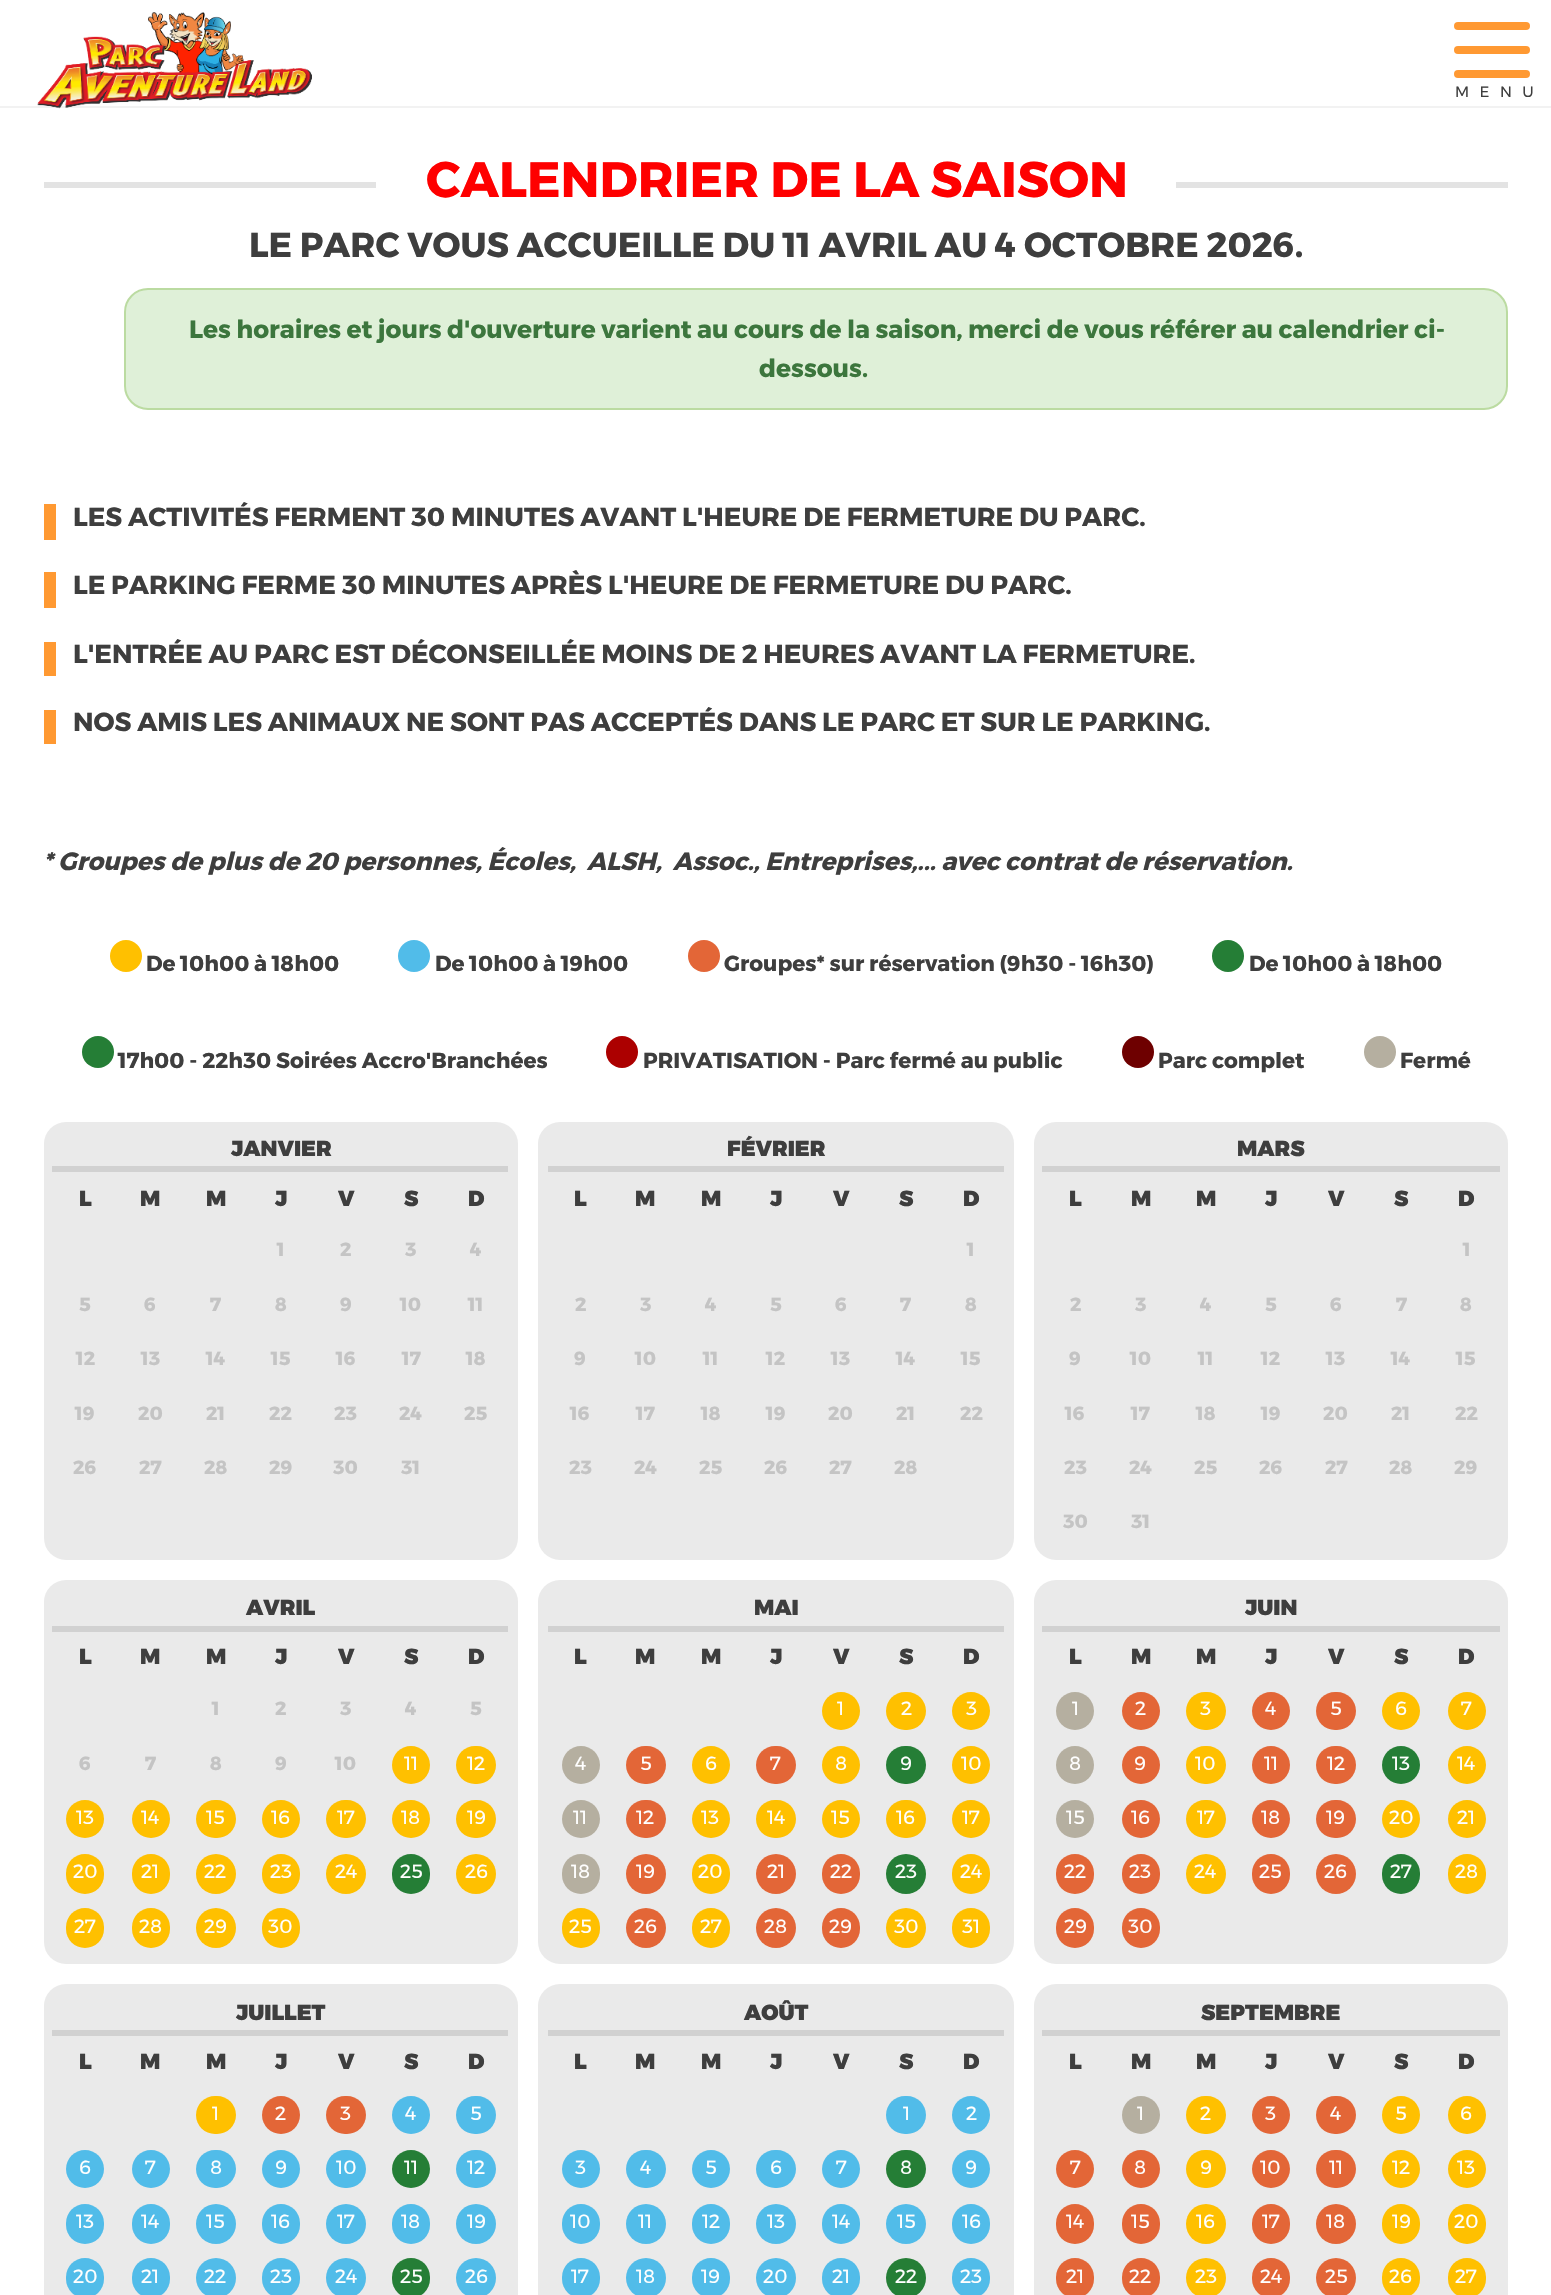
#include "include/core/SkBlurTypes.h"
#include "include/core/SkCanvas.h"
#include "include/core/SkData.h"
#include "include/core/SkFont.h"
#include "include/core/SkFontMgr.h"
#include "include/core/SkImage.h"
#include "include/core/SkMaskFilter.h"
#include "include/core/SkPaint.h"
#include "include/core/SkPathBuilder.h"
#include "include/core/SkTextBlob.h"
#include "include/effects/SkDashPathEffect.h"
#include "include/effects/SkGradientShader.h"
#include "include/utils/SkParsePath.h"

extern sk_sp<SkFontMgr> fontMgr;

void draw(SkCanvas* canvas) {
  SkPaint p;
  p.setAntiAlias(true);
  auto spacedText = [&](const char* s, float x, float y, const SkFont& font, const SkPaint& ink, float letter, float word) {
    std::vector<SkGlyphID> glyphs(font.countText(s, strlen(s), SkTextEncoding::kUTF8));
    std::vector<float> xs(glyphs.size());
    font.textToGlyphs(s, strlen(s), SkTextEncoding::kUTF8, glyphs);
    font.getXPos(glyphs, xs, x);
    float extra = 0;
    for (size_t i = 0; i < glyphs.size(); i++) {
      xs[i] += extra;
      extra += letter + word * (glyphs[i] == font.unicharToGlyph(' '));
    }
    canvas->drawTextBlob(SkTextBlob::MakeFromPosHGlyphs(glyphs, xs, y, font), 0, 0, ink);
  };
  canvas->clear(SK_ColorWHITE);
  p.setColor(SkColorSetRGB(242, 242, 242));
  canvas->drawRect(SkRect::MakeLTRB(0, 106, 1551, 108), p);
  canvas->drawImageRect(SkImages::DeferredFromEncodedData(SkData::MakeFromFileName("images/1.png")), SkRect::MakeLTRB(37, 12, 312, 109), SkSamplingOptions());
  p.setColor(SkColorSetRGB(255, 153, 50));
  canvas->drawRoundRect(SkRect::MakeLTRB(1454, 22, 1530, 30), 4, 4, p);
  canvas->drawRoundRect(SkRect::MakeLTRB(1454, 46, 1530, 54), 4, 4, p);
  canvas->drawRoundRect(SkRect::MakeLTRB(1454, 70, 1530, 78), 4, 4, p);
  p.setColor(SkColorSetRGB(227, 227, 227));
  canvas->drawRect(SkRect::MakeLTRB(44, 182, 1508, 188), p);
  p.setColor(SK_ColorWHITE);
  canvas->drawRect(SkRect::MakeLTRB(376, 182, 1176, 188), p);
  p.setColor(SkColorSetRGB(223, 240, 216));
  canvas->drawRoundRect(SkRect::MakeLTRB(125, 289, 1507, 409), 23, 23, p);
  p.setStyle(SkPaint::kStroke_Style);
  p.setStrokeWidth(2);
  p.setColor(SkColorSetRGB(187, 219, 161));
  canvas->drawRoundRect(SkRect::MakeLTRB(125, 289, 1507, 409), 23, 23, p);
  p.setStyle(SkPaint::kFill_Style);
  p.setColor(SkColorSetRGB(255, 153, 50));
  canvas->drawRect(SkRect::MakeLTRB(44, 504, 56, 540), p);
  canvas->drawRect(SkRect::MakeLTRB(44, 572, 56, 608), p);
  canvas->drawRect(SkRect::MakeLTRB(44, 642, 56, 676), p);
  canvas->drawRect(SkRect::MakeLTRB(44, 710, 56, 744), p);
  p.setColor(SkColorSetRGB(255, 192, 0));
  canvas->drawCircle(126, 956, 16, p);
  p.setColor(SkColorSetRGB(81, 188, 233));
  canvas->drawCircle(414, 956, 16, p);
  p.setColor(SkColorSetRGB(227, 102, 55));
  canvas->drawCircle(704, 956, 16, p);
  p.setColor(SkColorSetRGB(37, 126, 54));
  canvas->drawCircle(1228, 956, 16, p);
  canvas->drawCircle(98, 1052, 16, p);
  p.setColor(SkColorSetRGB(172, 0, 0));
  canvas->drawCircle(622, 1052, 16, p);
  p.setColor(SkColorSetRGB(110, 0, 0));
  canvas->drawCircle(1138, 1052, 16, p);
  p.setColor(SkColorSetRGB(181, 175, 160));
  canvas->drawCircle(1380, 1052, 16, p);
  p.setColor(SkColorSetRGB(234, 234, 234));
  canvas->drawRoundRect(SkRect::MakeLTRB(44, 1122, 518, 1560), 22, 22, p);
  p.setColor(SkColorSetRGB(209, 209, 209));
  canvas->drawRect(SkRect::MakeLTRB(52, 1166, 508, 1172), p);
  p.setColor(SkColorSetRGB(234, 234, 234));
  canvas->drawRoundRect(SkRect::MakeLTRB(538, 1122, 1014, 1560), 22, 22, p);
  p.setColor(SkColorSetRGB(209, 209, 209));
  canvas->drawRect(SkRect::MakeLTRB(548, 1166, 1004, 1172), p);
  p.setColor(SkColorSetRGB(234, 234, 234));
  canvas->drawRoundRect(SkRect::MakeLTRB(1034, 1122, 1508, 1560), 22, 22, p);
  p.setColor(SkColorSetRGB(209, 209, 209));
  canvas->drawRect(SkRect::MakeLTRB(1042, 1166, 1500, 1172), p);
  p.setColor(SkColorSetRGB(234, 234, 234));
  canvas->drawRoundRect(SkRect::MakeLTRB(44, 1580, 518, 1964), 22, 22, p);
  p.setColor(SkColorSetRGB(209, 209, 209));
  canvas->drawRect(SkRect::MakeLTRB(52, 1626, 508, 1632), p);
  p.setColor(SkColorSetRGB(255, 192, 0));
  canvas->drawCircle(411, 1765, 19, p);
  canvas->drawRoundRect(SkRect::MakeLTRB(456, 1746, 496, 1784), 19, 19, p);
  canvas->drawCircle(85, 1819, 19, p);
  canvas->drawCircle(151, 1819, 19, p);
  canvas->drawRoundRect(SkRect::MakeLTRB(196, 1800, 236, 1838), 19, 19, p);
  canvas->drawCircle(281, 1819, 19, p);
  canvas->drawRoundRect(SkRect::MakeLTRB(326, 1800, 366, 1838), 19, 19, p);
  canvas->drawCircle(411, 1819, 19, p);
  canvas->drawRoundRect(SkRect::MakeLTRB(456, 1800, 496, 1838), 19, 19, p);
  canvas->drawRoundRect(SkRect::MakeLTRB(66, 1854, 104, 1894), 19, 19, p);
  canvas->drawRoundRect(SkRect::MakeLTRB(132, 1854, 170, 1894), 19, 19, p);
  canvas->drawCircle(216, 1874, 20, p);
  canvas->drawRoundRect(SkRect::MakeLTRB(262, 1854, 300, 1894), 19, 19, p);
  canvas->drawCircle(346, 1874, 20, p);
  p.setColor(SkColorSetRGB(37, 126, 54));
  canvas->drawRoundRect(SkRect::MakeLTRB(392, 1854, 430, 1894), 19, 19, p);
  p.setColor(SkColorSetRGB(255, 192, 0));
  canvas->drawCircle(476, 1874, 20, p);
  canvas->drawRoundRect(SkRect::MakeLTRB(66, 1908, 104, 1948), 19, 19, p);
  canvas->drawRoundRect(SkRect::MakeLTRB(132, 1908, 170, 1948), 19, 19, p);
  canvas->drawCircle(216, 1928, 20, p);
  canvas->drawRoundRect(SkRect::MakeLTRB(262, 1908, 300, 1948), 19, 19, p);
  p.setColor(SkColorSetRGB(234, 234, 234));
  canvas->drawRoundRect(SkRect::MakeLTRB(538, 1580, 1014, 1964), 22, 22, p);
  p.setColor(SkColorSetRGB(209, 209, 209));
  canvas->drawRect(SkRect::MakeLTRB(548, 1626, 1004, 1632), p);
  p.setColor(SkColorSetRGB(255, 192, 0));
  canvas->drawCircle(841, 1711, 19, p);
  canvas->drawRoundRect(SkRect::MakeLTRB(886, 1692, 926, 1730), 19, 19, p);
  canvas->drawCircle(971, 1711, 19, p);
  p.setColor(SkColorSetRGB(181, 175, 160));
  canvas->drawCircle(581, 1765, 19, p);
  p.setColor(SkColorSetRGB(227, 102, 55));
  canvas->drawRoundRect(SkRect::MakeLTRB(626, 1746, 666, 1784), 19, 19, p);
  p.setColor(SkColorSetRGB(255, 192, 0));
  canvas->drawCircle(711, 1765, 19, p);
  p.setColor(SkColorSetRGB(227, 102, 55));
  canvas->drawRoundRect(SkRect::MakeLTRB(756, 1746, 796, 1784), 19, 19, p);
  p.setColor(SkColorSetRGB(255, 192, 0));
  canvas->drawCircle(841, 1765, 19, p);
  p.setColor(SkColorSetRGB(37, 126, 54));
  canvas->drawRoundRect(SkRect::MakeLTRB(886, 1746, 926, 1784), 19, 19, p);
  p.setColor(SkColorSetRGB(255, 192, 0));
  canvas->drawCircle(971, 1765, 19, p);
  p.setColor(SkColorSetRGB(181, 175, 160));
  canvas->drawCircle(581, 1819, 19, p);
  p.setColor(SkColorSetRGB(227, 102, 55));
  canvas->drawRoundRect(SkRect::MakeLTRB(626, 1800, 666, 1838), 19, 19, p);
  p.setColor(SkColorSetRGB(255, 192, 0));
  canvas->drawCircle(711, 1819, 19, p);
  canvas->drawRoundRect(SkRect::MakeLTRB(756, 1800, 796, 1838), 19, 19, p);
  canvas->drawCircle(841, 1819, 19, p);
  canvas->drawRoundRect(SkRect::MakeLTRB(886, 1800, 926, 1838), 19, 19, p);
  canvas->drawCircle(971, 1819, 19, p);
  p.setColor(SkColorSetRGB(181, 175, 160));
  canvas->drawRoundRect(SkRect::MakeLTRB(562, 1854, 600, 1894), 19, 19, p);
  p.setColor(SkColorSetRGB(227, 102, 55));
  canvas->drawCircle(646, 1874, 20, p);
  p.setColor(SkColorSetRGB(255, 192, 0));
  canvas->drawRoundRect(SkRect::MakeLTRB(692, 1854, 730, 1894), 19, 19, p);
  p.setColor(SkColorSetRGB(227, 102, 55));
  canvas->drawCircle(776, 1874, 20, p);
  canvas->drawRoundRect(SkRect::MakeLTRB(822, 1854, 860, 1894), 19, 19, p);
  p.setColor(SkColorSetRGB(37, 126, 54));
  canvas->drawCircle(906, 1874, 20, p);
  p.setColor(SkColorSetRGB(255, 192, 0));
  canvas->drawRoundRect(SkRect::MakeLTRB(952, 1854, 990, 1894), 19, 19, p);
  canvas->drawRoundRect(SkRect::MakeLTRB(562, 1908, 600, 1948), 19, 19, p);
  p.setColor(SkColorSetRGB(227, 102, 55));
  canvas->drawCircle(646, 1928, 20, p);
  p.setColor(SkColorSetRGB(255, 192, 0));
  canvas->drawRoundRect(SkRect::MakeLTRB(692, 1908, 730, 1948), 19, 19, p);
  p.setColor(SkColorSetRGB(227, 102, 55));
  canvas->drawCircle(776, 1928, 20, p);
  canvas->drawRoundRect(SkRect::MakeLTRB(822, 1908, 860, 1948), 19, 19, p);
  p.setColor(SkColorSetRGB(255, 192, 0));
  canvas->drawCircle(906, 1928, 20, p);
  canvas->drawRoundRect(SkRect::MakeLTRB(952, 1908, 990, 1948), 19, 19, p);
  p.setColor(SkColorSetRGB(234, 234, 234));
  canvas->drawRoundRect(SkRect::MakeLTRB(1034, 1580, 1508, 1964), 22, 22, p);
  p.setColor(SkColorSetRGB(209, 209, 209));
  canvas->drawRect(SkRect::MakeLTRB(1042, 1626, 1500, 1632), p);
  p.setColor(SkColorSetRGB(181, 175, 160));
  canvas->drawCircle(1075, 1711, 19, p);
  p.setColor(SkColorSetRGB(227, 102, 55));
  canvas->drawCircle(1141, 1711, 19, p);
  p.setColor(SkColorSetRGB(255, 192, 0));
  canvas->drawRoundRect(SkRect::MakeLTRB(1186, 1692, 1226, 1730), 19, 19, p);
  p.setColor(SkColorSetRGB(227, 102, 55));
  canvas->drawCircle(1271, 1711, 19, p);
  canvas->drawRoundRect(SkRect::MakeLTRB(1316, 1692, 1356, 1730), 19, 19, p);
  p.setColor(SkColorSetRGB(255, 192, 0));
  canvas->drawCircle(1401, 1711, 19, p);
  canvas->drawCircle(1467, 1711, 19, p);
  p.setColor(SkColorSetRGB(181, 175, 160));
  canvas->drawCircle(1075, 1765, 19, p);
  p.setColor(SkColorSetRGB(227, 102, 55));
  canvas->drawCircle(1141, 1765, 19, p);
  p.setColor(SkColorSetRGB(255, 192, 0));
  canvas->drawRoundRect(SkRect::MakeLTRB(1186, 1746, 1226, 1784), 19, 19, p);
  p.setColor(SkColorSetRGB(227, 102, 55));
  canvas->drawCircle(1271, 1765, 19, p);
  canvas->drawRoundRect(SkRect::MakeLTRB(1316, 1746, 1356, 1784), 19, 19, p);
  p.setColor(SkColorSetRGB(37, 126, 54));
  canvas->drawCircle(1401, 1765, 19, p);
  p.setColor(SkColorSetRGB(255, 192, 0));
  canvas->drawCircle(1467, 1765, 19, p);
  p.setColor(SkColorSetRGB(181, 175, 160));
  canvas->drawCircle(1075, 1819, 19, p);
  p.setColor(SkColorSetRGB(227, 102, 55));
  canvas->drawCircle(1141, 1819, 19, p);
  p.setColor(SkColorSetRGB(255, 192, 0));
  canvas->drawRoundRect(SkRect::MakeLTRB(1186, 1800, 1226, 1838), 19, 19, p);
  p.setColor(SkColorSetRGB(227, 102, 55));
  canvas->drawCircle(1271, 1819, 19, p);
  canvas->drawRoundRect(SkRect::MakeLTRB(1316, 1800, 1356, 1838), 19, 19, p);
  p.setColor(SkColorSetRGB(255, 192, 0));
  canvas->drawCircle(1401, 1819, 19, p);
  canvas->drawCircle(1467, 1819, 19, p);
  p.setColor(SkColorSetRGB(227, 102, 55));
  canvas->drawRoundRect(SkRect::MakeLTRB(1056, 1854, 1094, 1894), 19, 19, p);
  canvas->drawRoundRect(SkRect::MakeLTRB(1122, 1854, 1160, 1894), 19, 19, p);
  p.setColor(SkColorSetRGB(255, 192, 0));
  canvas->drawCircle(1206, 1874, 20, p);
  p.setColor(SkColorSetRGB(227, 102, 55));
  canvas->drawRoundRect(SkRect::MakeLTRB(1252, 1854, 1290, 1894), 19, 19, p);
  canvas->drawCircle(1336, 1874, 20, p);
  p.setColor(SkColorSetRGB(37, 126, 54));
  canvas->drawRoundRect(SkRect::MakeLTRB(1382, 1854, 1420, 1894), 19, 19, p);
  p.setColor(SkColorSetRGB(255, 192, 0));
  canvas->drawRoundRect(SkRect::MakeLTRB(1448, 1854, 1486, 1894), 19, 19, p);
  p.setColor(SkColorSetRGB(227, 102, 55));
  canvas->drawRoundRect(SkRect::MakeLTRB(1056, 1908, 1094, 1948), 19, 19, p);
  canvas->drawRoundRect(SkRect::MakeLTRB(1122, 1908, 1160, 1948), 19, 19, p);
  p.setColor(SkColorSetRGB(234, 234, 234));
  canvas->drawRoundRect(SkRect::MakeLTRB(44, 1984, 518, 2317), 22, 22, p);
  p.setColor(SkColorSetRGB(209, 209, 209));
  canvas->drawRect(SkRect::MakeLTRB(52, 2030, 508, 2036), p);
  p.setColor(SkColorSetRGB(255, 192, 0));
  canvas->drawRoundRect(SkRect::MakeLTRB(196, 2096, 236, 2134), 19, 19, p);
  p.setColor(SkColorSetRGB(227, 102, 55));
  canvas->drawCircle(281, 2115, 19, p);
  canvas->drawRoundRect(SkRect::MakeLTRB(326, 2096, 366, 2134), 19, 19, p);
  p.setColor(SkColorSetRGB(81, 188, 233));
  canvas->drawCircle(411, 2115, 19, p);
  canvas->drawRoundRect(SkRect::MakeLTRB(456, 2096, 496, 2134), 19, 19, p);
  canvas->drawCircle(85, 2169, 19, p);
  canvas->drawCircle(151, 2169, 19, p);
  canvas->drawRoundRect(SkRect::MakeLTRB(196, 2150, 236, 2188), 19, 19, p);
  canvas->drawCircle(281, 2169, 19, p);
  canvas->drawRoundRect(SkRect::MakeLTRB(326, 2150, 366, 2188), 19, 19, p);
  p.setColor(SkColorSetRGB(37, 126, 54));
  canvas->drawCircle(411, 2169, 19, p);
  p.setColor(SkColorSetRGB(81, 188, 233));
  canvas->drawRoundRect(SkRect::MakeLTRB(456, 2150, 496, 2188), 19, 19, p);
  canvas->drawRoundRect(SkRect::MakeLTRB(66, 2204, 104, 2244), 19, 19, p);
  canvas->drawRoundRect(SkRect::MakeLTRB(132, 2204, 170, 2244), 19, 19, p);
  canvas->drawCircle(216, 2224, 20, p);
  canvas->drawRoundRect(SkRect::MakeLTRB(262, 2204, 300, 2244), 19, 19, p);
  canvas->drawCircle(346, 2224, 20, p);
  canvas->drawRoundRect(SkRect::MakeLTRB(392, 2204, 430, 2244), 19, 19, p);
  canvas->drawCircle(476, 2224, 20, p);
  canvas->drawRoundRect(SkRect::MakeLTRB(66, 2258, 104, 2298), 19, 19, p);
  canvas->drawRoundRect(SkRect::MakeLTRB(132, 2258, 170, 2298), 19, 19, p);
  canvas->drawCircle(216, 2278, 20, p);
  canvas->drawRoundRect(SkRect::MakeLTRB(262, 2258, 300, 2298), 19, 19, p);
  canvas->drawCircle(346, 2278, 20, p);
  p.setColor(SkColorSetRGB(37, 126, 54));
  canvas->drawRoundRect(SkRect::MakeLTRB(392, 2258, 430, 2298), 19, 19, p);
  p.setColor(SkColorSetRGB(81, 188, 233));
  canvas->drawCircle(476, 2278, 20, p);
  p.setColor(SkColorSetRGB(234, 234, 234));
  canvas->drawRoundRect(SkRect::MakeLTRB(538, 1984, 1014, 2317), 22, 22, p);
  p.setColor(SkColorSetRGB(209, 209, 209));
  canvas->drawRect(SkRect::MakeLTRB(548, 2030, 1004, 2036), p);
  p.setColor(SkColorSetRGB(81, 188, 233));
  canvas->drawRoundRect(SkRect::MakeLTRB(886, 2096, 926, 2134), 19, 19, p);
  canvas->drawCircle(971, 2115, 19, p);
  canvas->drawCircle(581, 2169, 19, p);
  canvas->drawRoundRect(SkRect::MakeLTRB(626, 2150, 666, 2188), 19, 19, p);
  canvas->drawCircle(711, 2169, 19, p);
  canvas->drawRoundRect(SkRect::MakeLTRB(756, 2150, 796, 2188), 19, 19, p);
  canvas->drawCircle(841, 2169, 19, p);
  p.setColor(SkColorSetRGB(37, 126, 54));
  canvas->drawRoundRect(SkRect::MakeLTRB(886, 2150, 926, 2188), 19, 19, p);
  p.setColor(SkColorSetRGB(81, 188, 233));
  canvas->drawCircle(971, 2169, 19, p);
  canvas->drawRoundRect(SkRect::MakeLTRB(562, 2204, 600, 2244), 19, 19, p);
  canvas->drawCircle(646, 2224, 20, p);
  canvas->drawRoundRect(SkRect::MakeLTRB(692, 2204, 730, 2244), 19, 19, p);
  canvas->drawCircle(776, 2224, 20, p);
  canvas->drawRoundRect(SkRect::MakeLTRB(822, 2204, 860, 2244), 19, 19, p);
  canvas->drawCircle(906, 2224, 20, p);
  canvas->drawRoundRect(SkRect::MakeLTRB(952, 2204, 990, 2244), 19, 19, p);
  canvas->drawRoundRect(SkRect::MakeLTRB(562, 2258, 600, 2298), 19, 19, p);
  canvas->drawCircle(646, 2278, 20, p);
  canvas->drawRoundRect(SkRect::MakeLTRB(692, 2258, 730, 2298), 19, 19, p);
  canvas->drawCircle(776, 2278, 20, p);
  canvas->drawRoundRect(SkRect::MakeLTRB(822, 2258, 860, 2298), 19, 19, p);
  p.setColor(SkColorSetRGB(37, 126, 54));
  canvas->drawCircle(906, 2278, 20, p);
  p.setColor(SkColorSetRGB(81, 188, 233));
  canvas->drawRoundRect(SkRect::MakeLTRB(952, 2258, 990, 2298), 19, 19, p);
  p.setColor(SkColorSetRGB(234, 234, 234));
  canvas->drawRoundRect(SkRect::MakeLTRB(1034, 1984, 1508, 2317), 22, 22, p);
  p.setColor(SkColorSetRGB(209, 209, 209));
  canvas->drawRect(SkRect::MakeLTRB(1042, 2030, 1500, 2036), p);
  p.setColor(SkColorSetRGB(181, 175, 160));
  canvas->drawCircle(1141, 2115, 19, p);
  p.setColor(SkColorSetRGB(255, 192, 0));
  canvas->drawRoundRect(SkRect::MakeLTRB(1186, 2096, 1226, 2134), 19, 19, p);
  p.setColor(SkColorSetRGB(227, 102, 55));
  canvas->drawCircle(1271, 2115, 19, p);
  canvas->drawRoundRect(SkRect::MakeLTRB(1316, 2096, 1356, 2134), 19, 19, p);
  p.setColor(SkColorSetRGB(255, 192, 0));
  canvas->drawCircle(1401, 2115, 19, p);
  canvas->drawCircle(1467, 2115, 19, p);
  p.setColor(SkColorSetRGB(227, 102, 55));
  canvas->drawCircle(1075, 2169, 19, p);
  canvas->drawCircle(1141, 2169, 19, p);
  p.setColor(SkColorSetRGB(255, 192, 0));
  canvas->drawRoundRect(SkRect::MakeLTRB(1186, 2150, 1226, 2188), 19, 19, p);
  p.setColor(SkColorSetRGB(227, 102, 55));
  canvas->drawCircle(1271, 2169, 19, p);
  canvas->drawRoundRect(SkRect::MakeLTRB(1316, 2150, 1356, 2188), 19, 19, p);
  p.setColor(SkColorSetRGB(255, 192, 0));
  canvas->drawCircle(1401, 2169, 19, p);
  canvas->drawCircle(1467, 2169, 19, p);
  p.setColor(SkColorSetRGB(227, 102, 55));
  canvas->drawRoundRect(SkRect::MakeLTRB(1056, 2204, 1094, 2244), 19, 19, p);
  canvas->drawRoundRect(SkRect::MakeLTRB(1122, 2204, 1160, 2244), 19, 19, p);
  p.setColor(SkColorSetRGB(255, 192, 0));
  canvas->drawCircle(1206, 2224, 20, p);
  p.setColor(SkColorSetRGB(227, 102, 55));
  canvas->drawRoundRect(SkRect::MakeLTRB(1252, 2204, 1290, 2244), 19, 19, p);
  canvas->drawCircle(1336, 2224, 20, p);
  p.setColor(SkColorSetRGB(255, 192, 0));
  canvas->drawRoundRect(SkRect::MakeLTRB(1382, 2204, 1420, 2244), 19, 19, p);
  canvas->drawRoundRect(SkRect::MakeLTRB(1448, 2204, 1486, 2244), 19, 19, p);
  p.setColor(SkColorSetRGB(227, 102, 55));
  canvas->drawRoundRect(SkRect::MakeLTRB(1056, 2258, 1094, 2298), 19, 19, p);
  canvas->drawRoundRect(SkRect::MakeLTRB(1122, 2258, 1160, 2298), 19, 19, p);
  p.setColor(SkColorSetRGB(255, 192, 0));
  canvas->drawCircle(1206, 2278, 20, p);
  p.setColor(SkColorSetRGB(227, 102, 55));
  canvas->drawRoundRect(SkRect::MakeLTRB(1252, 2258, 1290, 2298), 19, 19, p);
  canvas->drawCircle(1336, 2278, 20, p);
  p.setColor(SkColorSetRGB(255, 192, 0));
  canvas->drawRoundRect(SkRect::MakeLTRB(1382, 2258, 1420, 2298), 19, 19, p);
  canvas->drawRoundRect(SkRect::MakeLTRB(1448, 2258, 1486, 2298), 19, 19, p);
  SkFont font1(fontMgr->matchFamilyStyle("Montserrat", SkFontStyle::Normal()), 15);
  font1.setSubpixel(true);
  p.setColor(SkColorSetRGB(62, 62, 62));
  spacedText("MENU", 1455, 97, font1, p, 10.5f, 0);
  SkFont font2(fontMgr->matchFamilyStyle("Montserrat", SkFontStyle::Bold()), 49.75f);
  font2.setSubpixel(true);
  p.setColor(SkColorSetRGB(254, 0, 0));
  canvas->drawString("CALENDRIER DE LA SAISON", 426, 197, font2, p);
  SkFont font3(fontMgr->matchFamilyStyle("Montserrat", SkFontStyle::Bold()), 34.75f);
  font3.setSubpixel(true);
  p.setColor(SkColorSetRGB(62, 62, 62));
  canvas->drawString("LE PARC VOUS ACCUEILLE DU 11 AVRIL AU 4 OCTOBRE 2026.", 249, 257, font3, p);
  SkFont font4(fontMgr->matchFamilyStyle("Montserrat", SkFontStyle::Bold()), 24.85f);
  font4.setSubpixel(true);
  p.setColor(SkColorSetRGB(60, 118, 61));
  canvas->drawString("Les horaires et jours d'ouverture varient au cours de la saison, merci de vous référer au calendrier ci-", 189, 338, font4, p);
  canvas->drawString("dessous.", 759, 377, font4, p);
  SkFont font5(fontMgr->matchFamilyStyle("Montserrat", SkFontStyle::Bold()), 26.1f);
  font5.setSubpixel(true);
  p.setColor(SkColorSetRGB(62, 62, 62));
  canvas->drawString("LES ACTIVITÉS FERMENT 30 MINUTES AVANT L'HEURE DE FERMETURE DU PARC.", 73, 526, font5, p);
  canvas->drawString("LE PARKING FERME 30 MINUTES APRÈS L'HEURE DE FERMETURE DU PARC.", 73, 594, font5, p);
  canvas->drawString("L'ENTRÉE AU PARC EST DÉCONSEILLÉE MOINS DE 2 HEURES AVANT LA FERMETURE.", 73, 663, font5, p);
  canvas->drawString("NOS AMIS LES ANIMAUX NE SONT PAS ACCEPTÉS DANS LE PARC ET SUR LE PARKING.", 73, 731, font5, p);
  SkFont font6(fontMgr->matchFamilyStyle("Montserrat", SkFontStyle::BoldItalic()), 24.85f);
  font6.setSubpixel(true);
  canvas->drawString("* Groupes de plus de 20 personnes, Écoles,  ALSH,  Assoc., Entreprises,... avec contrat de réservation.", 43, 870, font6, p);
  SkFont font7(fontMgr->matchFamilyStyle("Montserrat", SkFontStyle::Bold()), 21.6f);
  font7.setSubpixel(true);
  canvas->drawString("De 10h00 à 18h00", 146, 971, font7, p);
  canvas->drawString("De 10h00 à 19h00", 435, 971, font7, p);
  canvas->drawString("Groupes* sur réservation (9h30 - 16h30)", 724, 971, font7, p);
  canvas->drawString("De 10h00 à 18h00", 1249, 971, font7, p);
  canvas->drawString("17h00 - 22h30 Soirées Accro'Branchées", 118, 1068, font7, p);
  canvas->drawString("PRIVATISATION - Parc fermé au public", 643, 1068, font7, p);
  canvas->drawString("Parc complet", 1158, 1068, font7, p);
  canvas->drawString("Fermé", 1400, 1068, font7, p);
  SkFont font8(fontMgr->matchFamilyStyle("Montserrat", SkFontStyle(900, SkFontStyle::kNormal_Width, SkFontStyle::kUpright_Slant)), 21.6f);
  font8.setSubpixel(true);
  canvas->drawString("JANVIER", 231, 1156, font8, p);
  canvas->drawString("L", 79, 1206, font8, p);
  canvas->drawString("M", 140, 1206, font8, p);
  canvas->drawString("M", 206, 1206, font8, p);
  canvas->drawString("J", 275, 1206, font8, p);
  canvas->drawString("V", 338, 1206, font8, p);
  canvas->drawString("S", 404, 1206, font8, p);
  canvas->drawString("D", 468, 1206, font8, p);
  SkFont font9(fontMgr->matchFamilyStyle("Montserrat", SkFontStyle::Bold()), 19);
  font9.setSubpixel(true);
  p.setColor(SkColorSetRGB(196, 196, 196));
  canvas->drawString("1", 277, 1256, font9, p);
  canvas->drawString("2", 340, 1256, font9, p);
  canvas->drawString("3", 405, 1256, font9, p);
  canvas->drawString("4", 470, 1256, font9, p);
  canvas->drawString("5", 79, 1311, font9, p);
  canvas->drawString("6", 144, 1311, font9, p);
  canvas->drawString("7", 210, 1311, font9, p);
  canvas->drawString("8", 275, 1311, font9, p);
  canvas->drawString("9", 340, 1311, font9, p);
  canvas->drawString("10", 400, 1311, font9, p);
  canvas->drawString("11", 468, 1311, font9, p);
  canvas->drawString("12", 76, 1365, font9, p);
  canvas->drawString("13", 141, 1365, font9, p);
  canvas->drawString("14", 206, 1365, font9, p);
  canvas->drawString("15", 271, 1365, font9, p);
  canvas->drawString("16", 336, 1365, font9, p);
  canvas->drawString("17", 402, 1365, font9, p);
  canvas->drawString("18", 466, 1365, font9, p);
  canvas->drawString("19", 75, 1420, font9, p);
  canvas->drawString("20", 138, 1420, font9, p);
  canvas->drawString("21", 206, 1420, font9, p);
  canvas->drawString("22", 269, 1420, font9, p);
  canvas->drawString("23", 334, 1420, font9, p);
  canvas->drawString("24", 399, 1420, font9, p);
  canvas->drawString("25", 464, 1420, font9, p);
  canvas->drawString("26", 73, 1474, font9, p);
  canvas->drawString("27", 139, 1474, font9, p);
  canvas->drawString("28", 204, 1474, font9, p);
  canvas->drawString("29", 269, 1474, font9, p);
  canvas->drawString("30", 333, 1474, font9, p);
  canvas->drawString("31", 401, 1474, font9, p);
  p.setColor(SkColorSetRGB(62, 62, 62));
  canvas->drawString("FÉVRIER", 727, 1156, font8, p);
  canvas->drawString("L", 574, 1206, font8, p);
  canvas->drawString("M", 635, 1206, font8, p);
  canvas->drawString("M", 701, 1206, font8, p);
  canvas->drawString("J", 770, 1206, font8, p);
  canvas->drawString("V", 833, 1206, font8, p);
  canvas->drawString("S", 899, 1206, font8, p);
  canvas->drawString("D", 963, 1206, font8, p);
  p.setColor(SkColorSetRGB(196, 196, 196));
  canvas->drawString("1", 967, 1256, font9, p);
  canvas->drawString("2", 575, 1311, font9, p);
  canvas->drawString("3", 640, 1311, font9, p);
  canvas->drawString("4", 705, 1311, font9, p);
  canvas->drawString("5", 770, 1311, font9, p);
  canvas->drawString("6", 835, 1311, font9, p);
  canvas->drawString("7", 900, 1311, font9, p);
  canvas->drawString("8", 965, 1311, font9, p);
  canvas->drawString("9", 574, 1365, font9, p);
  canvas->drawString("10", 635, 1365, font9, p);
  canvas->drawString("11", 703, 1365, font9, p);
  canvas->drawString("12", 766, 1365, font9, p);
  canvas->drawString("13", 831, 1365, font9, p);
  canvas->drawString("14", 896, 1365, font9, p);
  canvas->drawString("15", 961, 1365, font9, p);
  canvas->drawString("16", 570, 1420, font9, p);
  canvas->drawString("17", 636, 1420, font9, p);
  canvas->drawString("18", 701, 1420, font9, p);
  canvas->drawString("19", 766, 1420, font9, p);
  canvas->drawString("20", 828, 1420, font9, p);
  canvas->drawString("21", 896, 1420, font9, p);
  canvas->drawString("22", 960, 1420, font9, p);
  canvas->drawString("23", 569, 1474, font9, p);
  canvas->drawString("24", 634, 1474, font9, p);
  canvas->drawString("25", 699, 1474, font9, p);
  canvas->drawString("26", 764, 1474, font9, p);
  canvas->drawString("27", 829, 1474, font9, p);
  canvas->drawString("28", 894, 1474, font9, p);
  p.setColor(SkColorSetRGB(62, 62, 62));
  canvas->drawString("MARS", 1237, 1156, font8, p);
  canvas->drawString("L", 1069, 1206, font8, p);
  canvas->drawString("M", 1131, 1206, font8, p);
  canvas->drawString("M", 1196, 1206, font8, p);
  canvas->drawString("J", 1265, 1206, font8, p);
  canvas->drawString("V", 1328, 1206, font8, p);
  canvas->drawString("S", 1394, 1206, font8, p);
  canvas->drawString("D", 1458, 1206, font8, p);
  p.setColor(SkColorSetRGB(196, 196, 196));
  canvas->drawString("1", 1463, 1256, font9, p);
  canvas->drawString("2", 1070, 1311, font9, p);
  canvas->drawString("3", 1135, 1311, font9, p);
  canvas->drawString("4", 1200, 1311, font9, p);
  canvas->drawString("5", 1265, 1311, font9, p);
  canvas->drawString("6", 1330, 1311, font9, p);
  canvas->drawString("7", 1396, 1311, font9, p);
  canvas->drawString("8", 1460, 1311, font9, p);
  canvas->drawString("9", 1069, 1365, font9, p);
  canvas->drawString("10", 1130, 1365, font9, p);
  canvas->drawString("11", 1198, 1365, font9, p);
  canvas->drawString("12", 1261, 1365, font9, p);
  canvas->drawString("13", 1326, 1365, font9, p);
  canvas->drawString("14", 1391, 1365, font9, p);
  canvas->drawString("15", 1456, 1365, font9, p);
  canvas->drawString("16", 1065, 1420, font9, p);
  canvas->drawString("17", 1131, 1420, font9, p);
  canvas->drawString("18", 1196, 1420, font9, p);
  canvas->drawString("19", 1261, 1420, font9, p);
  canvas->drawString("20", 1323, 1420, font9, p);
  canvas->drawString("21", 1391, 1420, font9, p);
  canvas->drawString("22", 1455, 1420, font9, p);
  canvas->drawString("23", 1064, 1474, font9, p);
  canvas->drawString("24", 1129, 1474, font9, p);
  canvas->drawString("25", 1194, 1474, font9, p);
  canvas->drawString("26", 1259, 1474, font9, p);
  canvas->drawString("27", 1325, 1474, font9, p);
  canvas->drawString("28", 1389, 1474, font9, p);
  canvas->drawString("29", 1454, 1474, font9, p);
  canvas->drawString("30", 1063, 1528, font9, p);
  canvas->drawString("31", 1131, 1528, font9, p);
  p.setColor(SkColorSetRGB(62, 62, 62));
  canvas->drawString("AVRIL", 246, 1615, font8, p);
  canvas->drawString("L", 79, 1664, font8, p);
  canvas->drawString("M", 140, 1664, font8, p);
  canvas->drawString("M", 206, 1664, font8, p);
  canvas->drawString("J", 275, 1664, font8, p);
  canvas->drawString("V", 338, 1664, font8, p);
  canvas->drawString("S", 404, 1664, font8, p);
  canvas->drawString("D", 468, 1664, font8, p);
  p.setColor(SkColorSetRGB(196, 196, 196));
  canvas->drawString("1", 212, 1715, font9, p);
  canvas->drawString("2", 275, 1715, font9, p);
  canvas->drawString("3", 340, 1715, font9, p);
  canvas->drawString("4", 405, 1715, font9, p);
  canvas->drawString("5", 470, 1715, font9, p);
  canvas->drawString("6", 79, 1770, font9, p);
  canvas->drawString("7", 145, 1770, font9, p);
  canvas->drawString("8", 210, 1770, font9, p);
  canvas->drawString("9", 275, 1770, font9, p);
  canvas->drawString("10", 335, 1770, font9, p);
  SkFont font10(fontMgr->matchFamilyStyle("Montserrat", SkFontStyle::Normal()), 19);
  font10.setSubpixel(true);
  p.setColor(SK_ColorWHITE);
  canvas->drawString("11", 404, 1770, font10, p);
  canvas->drawString("12", 467, 1770, font10, p);
  canvas->drawString("13", 76, 1824, font10, p);
  canvas->drawString("14", 141, 1824, font10, p);
  canvas->drawString("15", 206, 1824, font10, p);
  canvas->drawString("16", 271, 1824, font10, p);
  canvas->drawString("17", 337, 1824, font10, p);
  canvas->drawString("18", 401, 1824, font10, p);
  canvas->drawString("19", 467, 1824, font10, p);
  canvas->drawString("20", 73, 1878, font10, p);
  canvas->drawString("21", 141, 1878, font10, p);
  canvas->drawString("22", 204, 1878, font10, p);
  canvas->drawString("23", 270, 1878, font10, p);
  canvas->drawString("24", 335, 1878, font10, p);
  canvas->drawString("25", 400, 1878, font10, p);
  canvas->drawString("26", 465, 1878, font10, p);
  canvas->drawString("27", 74, 1933, font10, p);
  canvas->drawString("28", 139, 1933, font10, p);
  canvas->drawString("29", 204, 1933, font10, p);
  canvas->drawString("30", 268, 1933, font10, p);
  p.setColor(SkColorSetRGB(62, 62, 62));
  canvas->drawString("MAI", 754, 1615, font8, p);
  canvas->drawString("L", 574, 1664, font8, p);
  canvas->drawString("M", 635, 1664, font8, p);
  canvas->drawString("M", 701, 1664, font8, p);
  canvas->drawString("J", 770, 1664, font8, p);
  canvas->drawString("V", 833, 1664, font8, p);
  canvas->drawString("S", 899, 1664, font8, p);
  canvas->drawString("D", 963, 1664, font8, p);
  p.setColor(SK_ColorWHITE);
  canvas->drawString("1", 837, 1715, font10, p);
  canvas->drawString("2", 901, 1715, font10, p);
  canvas->drawString("3", 966, 1715, font10, p);
  canvas->drawString("4", 575, 1770, font10, p);
  canvas->drawString("5", 640, 1770, font10, p);
  canvas->drawString("6", 705, 1770, font10, p);
  canvas->drawString("7", 770, 1770, font10, p);
  canvas->drawString("8", 835, 1770, font10, p);
  canvas->drawString("9", 900, 1770, font10, p);
  canvas->drawString("10", 961, 1770, font10, p);
  canvas->drawString("11", 573, 1824, font10, p);
  canvas->drawString("12", 636, 1824, font10, p);
  canvas->drawString("13", 701, 1824, font10, p);
  canvas->drawString("14", 767, 1824, font10, p);
  canvas->drawString("15", 831, 1824, font10, p);
  canvas->drawString("16", 896, 1824, font10, p);
  canvas->drawString("17", 962, 1824, font10, p);
  canvas->drawString("18", 571, 1878, font10, p);
  canvas->drawString("19", 636, 1878, font10, p);
  canvas->drawString("20", 698, 1878, font10, p);
  canvas->drawString("21", 767, 1878, font10, p);
  canvas->drawString("22", 830, 1878, font10, p);
  canvas->drawString("23", 895, 1878, font10, p);
  canvas->drawString("24", 960, 1878, font10, p);
  canvas->drawString("25", 569, 1933, font10, p);
  canvas->drawString("26", 634, 1933, font10, p);
  canvas->drawString("27", 700, 1933, font10, p);
  canvas->drawString("28", 764, 1933, font10, p);
  canvas->drawString("29", 829, 1933, font10, p);
  canvas->drawString("30", 894, 1933, font10, p);
  canvas->drawString("31", 962, 1933, font10, p);
  p.setColor(SkColorSetRGB(62, 62, 62));
  canvas->drawString("JUIN", 1245, 1615, font8, p);
  canvas->drawString("L", 1069, 1664, font8, p);
  canvas->drawString("M", 1131, 1664, font8, p);
  canvas->drawString("M", 1196, 1664, font8, p);
  canvas->drawString("J", 1265, 1664, font8, p);
  canvas->drawString("V", 1328, 1664, font8, p);
  canvas->drawString("S", 1394, 1664, font8, p);
  canvas->drawString("D", 1458, 1664, font8, p);
  p.setColor(SK_ColorWHITE);
  canvas->drawString("1", 1072, 1715, font10, p);
  canvas->drawString("2", 1135, 1715, font10, p);
  canvas->drawString("3", 1200, 1715, font10, p);
  canvas->drawString("4", 1265, 1715, font10, p);
  canvas->drawString("5", 1330, 1715, font10, p);
  canvas->drawString("6", 1395, 1715, font10, p);
  canvas->drawString("7", 1461, 1715, font10, p);
  canvas->drawString("8", 1069, 1770, font10, p);
  canvas->drawString("9", 1134, 1770, font10, p);
  canvas->drawString("10", 1195, 1770, font10, p);
  canvas->drawString("11", 1264, 1770, font10, p);
  canvas->drawString("12", 1327, 1770, font10, p);
  canvas->drawString("13", 1392, 1770, font10, p);
  canvas->drawString("14", 1457, 1770, font10, p);
  canvas->drawString("15", 1066, 1824, font10, p);
  canvas->drawString("16", 1131, 1824, font10, p);
  canvas->drawString("17", 1197, 1824, font10, p);
  canvas->drawString("18", 1261, 1824, font10, p);
  canvas->drawString("19", 1326, 1824, font10, p);
  canvas->drawString("20", 1389, 1824, font10, p);
  canvas->drawString("21", 1457, 1824, font10, p);
  canvas->drawString("22", 1064, 1878, font10, p);
  canvas->drawString("23", 1129, 1878, font10, p);
  canvas->drawString("24", 1194, 1878, font10, p);
  canvas->drawString("25", 1259, 1878, font10, p);
  canvas->drawString("26", 1324, 1878, font10, p);
  canvas->drawString("27", 1390, 1878, font10, p);
  canvas->drawString("28", 1455, 1878, font10, p);
  canvas->drawString("29", 1064, 1933, font10, p);
  canvas->drawString("30", 1128, 1933, font10, p);
  p.setColor(SkColorSetRGB(62, 62, 62));
  canvas->drawString("JUILLET", 236, 2020, font8, p);
  canvas->drawString("L", 79, 2069, font8, p);
  canvas->drawString("M", 140, 2069, font8, p);
  canvas->drawString("M", 206, 2069, font8, p);
  canvas->drawString("J", 275, 2069, font8, p);
  canvas->drawString("V", 338, 2069, font8, p);
  canvas->drawString("S", 404, 2069, font8, p);
  canvas->drawString("D", 468, 2069, font8, p);
  p.setColor(SK_ColorWHITE);
  canvas->drawString("1", 212, 2120, font10, p);
  canvas->drawString("2", 275, 2120, font10, p);
  canvas->drawString("3", 340, 2120, font10, p);
  canvas->drawString("4", 405, 2120, font10, p);
  canvas->drawString("5", 470, 2120, font10, p);
  canvas->drawString("6", 79, 2174, font10, p);
  canvas->drawString("7", 145, 2174, font10, p);
  canvas->drawString("8", 210, 2174, font10, p);
  canvas->drawString("9", 275, 2174, font10, p);
  canvas->drawString("10", 336, 2174, font10, p);
  canvas->drawString("11", 404, 2174, font10, p);
  canvas->drawString("12", 467, 2174, font10, p);
  canvas->drawString("13", 76, 2228, font10, p);
  canvas->drawString("14", 141, 2228, font10, p);
  canvas->drawString("15", 206, 2228, font10, p);
  canvas->drawString("16", 271, 2228, font10, p);
  canvas->drawString("17", 337, 2228, font10, p);
  canvas->drawString("18", 401, 2228, font10, p);
  canvas->drawString("19", 467, 2228, font10, p);
  canvas->drawString("20", 73, 2283, font10, p);
  canvas->drawString("21", 141, 2283, font10, p);
  canvas->drawString("22", 204, 2283, font10, p);
  canvas->drawString("23", 270, 2283, font10, p);
  canvas->drawString("24", 335, 2283, font10, p);
  canvas->drawString("25", 400, 2283, font10, p);
  canvas->drawString("26", 465, 2283, font10, p);
  p.setColor(SkColorSetRGB(62, 62, 62));
  canvas->drawString("AOÛT", 744, 2020, font8, p);
  canvas->drawString("L", 574, 2069, font8, p);
  canvas->drawString("M", 635, 2069, font8, p);
  canvas->drawString("M", 701, 2069, font8, p);
  canvas->drawString("J", 770, 2069, font8, p);
  canvas->drawString("V", 833, 2069, font8, p);
  canvas->drawString("S", 899, 2069, font8, p);
  canvas->drawString("D", 963, 2069, font8, p);
  p.setColor(SK_ColorWHITE);
  canvas->drawString("1", 903, 2120, font10, p);
  canvas->drawString("2", 966, 2120, font10, p);
  canvas->drawString("3", 575, 2174, font10, p);
  canvas->drawString("4", 640, 2174, font10, p);
  canvas->drawString("5", 705, 2174, font10, p);
  canvas->drawString("6", 770, 2174, font10, p);
  canvas->drawString("7", 836, 2174, font10, p);
  canvas->drawString("8", 900, 2174, font10, p);
  canvas->drawString("9", 965, 2174, font10, p);
  canvas->drawString("10", 570, 2228, font10, p);
  canvas->drawString("11", 638, 2228, font10, p);
  canvas->drawString("12", 702, 2228, font10, p);
  canvas->drawString("13", 767, 2228, font10, p);
  canvas->drawString("14", 832, 2228, font10, p);
  canvas->drawString("15", 897, 2228, font10, p);
  canvas->drawString("16", 962, 2228, font10, p);
  canvas->drawString("17", 571, 2283, font10, p);
  canvas->drawString("18", 636, 2283, font10, p);
  canvas->drawString("19", 701, 2283, font10, p);
  canvas->drawString("20", 763, 2283, font10, p);
  canvas->drawString("21", 832, 2283, font10, p);
  canvas->drawString("22", 895, 2283, font10, p);
  canvas->drawString("23", 960, 2283, font10, p);
  p.setColor(SkColorSetRGB(62, 62, 62));
  canvas->drawString("SEPTEMBRE", 1201, 2020, font8, p);
  canvas->drawString("L", 1069, 2069, font8, p);
  canvas->drawString("M", 1131, 2069, font8, p);
  canvas->drawString("M", 1196, 2069, font8, p);
  canvas->drawString("J", 1265, 2069, font8, p);
  canvas->drawString("V", 1328, 2069, font8, p);
  canvas->drawString("S", 1394, 2069, font8, p);
  canvas->drawString("D", 1458, 2069, font8, p);
  p.setColor(SK_ColorWHITE);
  canvas->drawString("1", 1137, 2120, font10, p);
  canvas->drawString("2", 1200, 2120, font10, p);
  canvas->drawString("3", 1265, 2120, font10, p);
  canvas->drawString("4", 1330, 2120, font10, p);
  canvas->drawString("5", 1395, 2120, font10, p);
  canvas->drawString("6", 1460, 2120, font10, p);
  canvas->drawString("7", 1070, 2174, font10, p);
  canvas->drawString("8", 1134, 2174, font10, p);
  canvas->drawString("9", 1200, 2174, font10, p);
  canvas->drawString("10", 1260, 2174, font10, p);
  canvas->drawString("11", 1329, 2174, font10, p);
  canvas->drawString("12", 1392, 2174, font10, p);
  canvas->drawString("13", 1457, 2174, font10, p);
  canvas->drawString("14", 1066, 2228, font10, p);
  canvas->drawString("15", 1131, 2228, font10, p);
  canvas->drawString("16", 1196, 2228, font10, p);
  canvas->drawString("17", 1262, 2228, font10, p);
  canvas->drawString("18", 1326, 2228, font10, p);
  canvas->drawString("19", 1392, 2228, font10, p);
  canvas->drawString("20", 1454, 2228, font10, p);
  canvas->drawString("21", 1066, 2283, font10, p);
  canvas->drawString("22", 1129, 2283, font10, p);
  canvas->drawString("23", 1195, 2283, font10, p);
  canvas->drawString("24", 1260, 2283, font10, p);
  canvas->drawString("25", 1325, 2283, font10, p);
  canvas->drawString("26", 1389, 2283, font10, p);
  canvas->drawString("27", 1455, 2283, font10, p);
}
